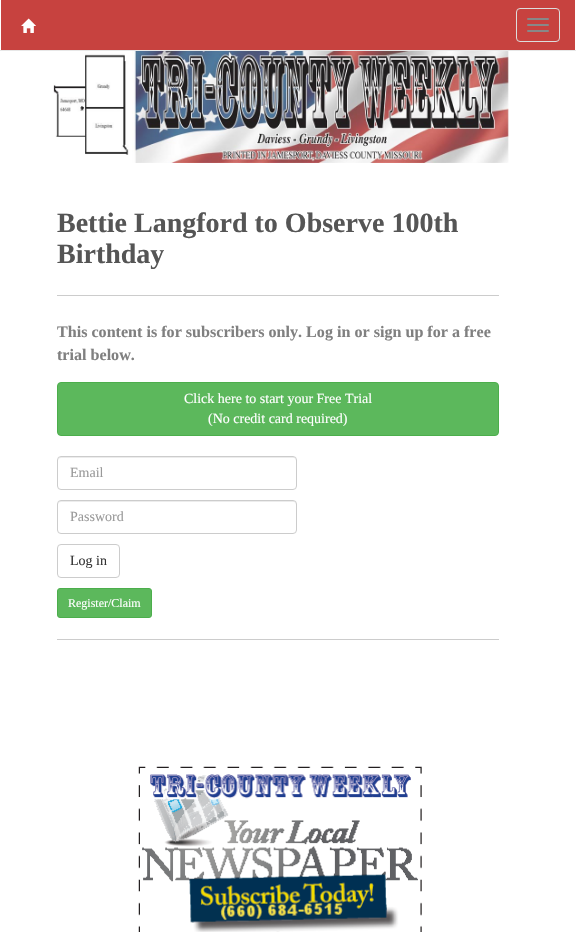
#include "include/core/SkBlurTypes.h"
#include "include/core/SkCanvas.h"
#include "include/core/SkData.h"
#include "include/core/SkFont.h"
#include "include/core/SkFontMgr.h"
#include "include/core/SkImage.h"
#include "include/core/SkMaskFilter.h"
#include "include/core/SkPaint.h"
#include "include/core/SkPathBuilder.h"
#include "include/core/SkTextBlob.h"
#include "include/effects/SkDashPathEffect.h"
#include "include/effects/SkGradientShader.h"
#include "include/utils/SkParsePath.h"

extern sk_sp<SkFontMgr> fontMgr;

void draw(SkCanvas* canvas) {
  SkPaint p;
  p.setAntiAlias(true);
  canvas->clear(SK_ColorWHITE);
  p.setColor(SkColorSetRGB(231, 231, 231));
  canvas->drawRect(SkRect::MakeLTRB(0, 50, 576, 51), p);
  p.setColor(SkColorSetRGB(199, 66, 63));
  canvas->drawRect(SkRect::MakeLTRB(1, 0, 575, 50), p);
  canvas->drawImageRect(SkImages::DeferredFromEncodedData(SkData::MakeFromFileName("images/1.png")), SkRect::MakeLTRB(21, 18, 36, 33), SkSamplingOptions());
  p.setStyle(SkPaint::kStroke_Style);
  p.setStrokeWidth(1);
  p.setColor(SkColorSetRGB(221, 221, 221));
  canvas->drawRoundRect(SkRect::MakeLTRB(516.5f, 8.5f, 559.5f, 41.5f), 3.5f, 3.5f, p);
  p.setStyle(SkPaint::kFill_Style);
  p.setColor(SkColorSetRGB(136, 136, 136));
  canvas->drawRoundRect(SkRect::MakeLTRB(527, 18, 549, 20), 1, 1, p);
  canvas->drawRoundRect(SkRect::MakeLTRB(527, 24, 549, 26), 1, 1, p);
  canvas->drawRoundRect(SkRect::MakeLTRB(527, 30, 549, 32), 1, 1, p);
  canvas->drawImageRect(SkImages::DeferredFromEncodedData(SkData::MakeFromFileName("images/2.png")), SkRect::MakeLTRB(53, 51, 509, 163), SkSamplingOptions());
  p.setColor(SkColorSetRGB(204, 204, 204));
  canvas->drawRect(SkRect::MakeLTRB(57, 295, 499, 296), p);
  p.setColor(SkColorSetRGB(92, 184, 92));
  canvas->drawRoundRect(SkRect::MakeLTRB(57.5f, 382.5f, 498.5f, 435.5f), 3.5f, 3.5f, p);
  p.setStyle(SkPaint::kStroke_Style);
  p.setColor(SkColorSetRGB(76, 174, 76));
  canvas->drawRoundRect(SkRect::MakeLTRB(57.5f, 382.5f, 498.5f, 435.5f), 3.5f, 3.5f, p);
  p.setStyle(SkPaint::kFill_Style);
  p.setColor(SkColorSetRGB(236, 236, 236));
  canvas->drawPath(SkPathBuilder().moveTo(61, 458).lineTo(294, 458).lineTo(296, 459).lineTo(296, 461).cubicTo(296, 459, 295, 457, 293, 457).lineTo(61, 457).cubicTo(59, 457, 58, 459, 58, 461).cubicTo(58, 459, 59, 458, 61, 458).close().detach(), p);
  p.setStyle(SkPaint::kStroke_Style);
  p.setColor(SkColorSetRGB(204, 204, 204));
  canvas->drawRoundRect(SkRect::MakeLTRB(57.5f, 456.5f, 296.5f, 489.5f), 3.5f, 3.5f, p);
  p.setStyle(SkPaint::kFill_Style);
  p.setColor(SkColorSetRGB(236, 236, 236));
  canvas->drawPath(SkPathBuilder().moveTo(61, 502).lineTo(294, 502).lineTo(296, 503).lineTo(296, 505).cubicTo(296, 503, 295, 501, 293, 501).lineTo(61, 501).cubicTo(59, 501, 58, 503, 58, 505).cubicTo(58, 503, 59, 502, 61, 502).close().detach(), p);
  p.setStyle(SkPaint::kStroke_Style);
  p.setColor(SkColorSetRGB(204, 204, 204));
  canvas->drawRoundRect(SkRect::MakeLTRB(57.5f, 500.5f, 296.5f, 533.5f), 3.5f, 3.5f, p);
  canvas->drawRoundRect(SkRect::MakeLTRB(57.5f, 544.5f, 119.5f, 577.5f), 3.5f, 3.5f, p);
  p.setStyle(SkPaint::kFill_Style);
  p.setColor(SkColorSetRGB(92, 184, 92));
  canvas->drawRoundRect(SkRect::MakeLTRB(57.5f, 588.5f, 151.5f, 617.5f), 2.5f, 2.5f, p);
  p.setStyle(SkPaint::kStroke_Style);
  p.setColor(SkColorSetRGB(76, 174, 76));
  canvas->drawRoundRect(SkRect::MakeLTRB(57.5f, 588.5f, 151.5f, 617.5f), 2.5f, 2.5f, p);
  p.setStyle(SkPaint::kFill_Style);
  p.setColor(SkColorSetRGB(204, 204, 204));
  canvas->drawRect(SkRect::MakeLTRB(57, 639, 499, 640), p);
  canvas->drawImageRect(SkImages::DeferredFromEncodedData(SkData::MakeFromFileName("images/3.png")), SkRect::MakeLTRB(138, 766, 422, 932), SkSamplingOptions());
  SkFont font1(fontMgr->matchFamilyStyle("Liberation Serif", SkFontStyle::Bold()), 28);
  font1.setSubpixel(true);
  p.setColor(SkColorSetRGB(85, 85, 85));
  canvas->drawString("Bettie Langford to Observe 100th", 57, 232, font1, p);
  canvas->drawString("Birthday", 57, 263, font1, p);
  SkFont font2(fontMgr->matchFamilyStyle("Liberation Serif", SkFontStyle::Bold()), 16.1f);
  font2.setSubpixel(true);
  p.setColor(SkColorSetRGB(128, 128, 128));
  canvas->drawString("This content is for subscribers only. Log in or sign up for a free", 57, 337, font2, p);
  canvas->drawString("trial below.", 57, 360, font2, p);
  SkFont font3(fontMgr->matchFamilyStyle("Liberation Serif", SkFontStyle::Normal()), 14);
  font3.setSubpixel(true);
  p.setColor(SK_ColorWHITE);
  canvas->drawString("Click here to start your Free Trial", 184, 403, font3, p);
  canvas->drawString("(No credit card required)", 208, 423, font3, p);
  p.setColor(SkColorSetRGB(153, 153, 153));
  canvas->drawString("Email", 70, 477, font3, p);
  canvas->drawString("Password", 70, 521, font3, p);
  p.setColor(SkColorSetRGB(51, 51, 51));
  canvas->drawString("Log in", 70, 565, font3, p);
  SkFont font4(fontMgr->matchFamilyStyle("Liberation Serif", SkFontStyle::Normal()), 12);
  font4.setSubpixel(true);
  p.setColor(SK_ColorWHITE);
  canvas->drawString("Register/Claim", 68, 607, font4, p);
}
